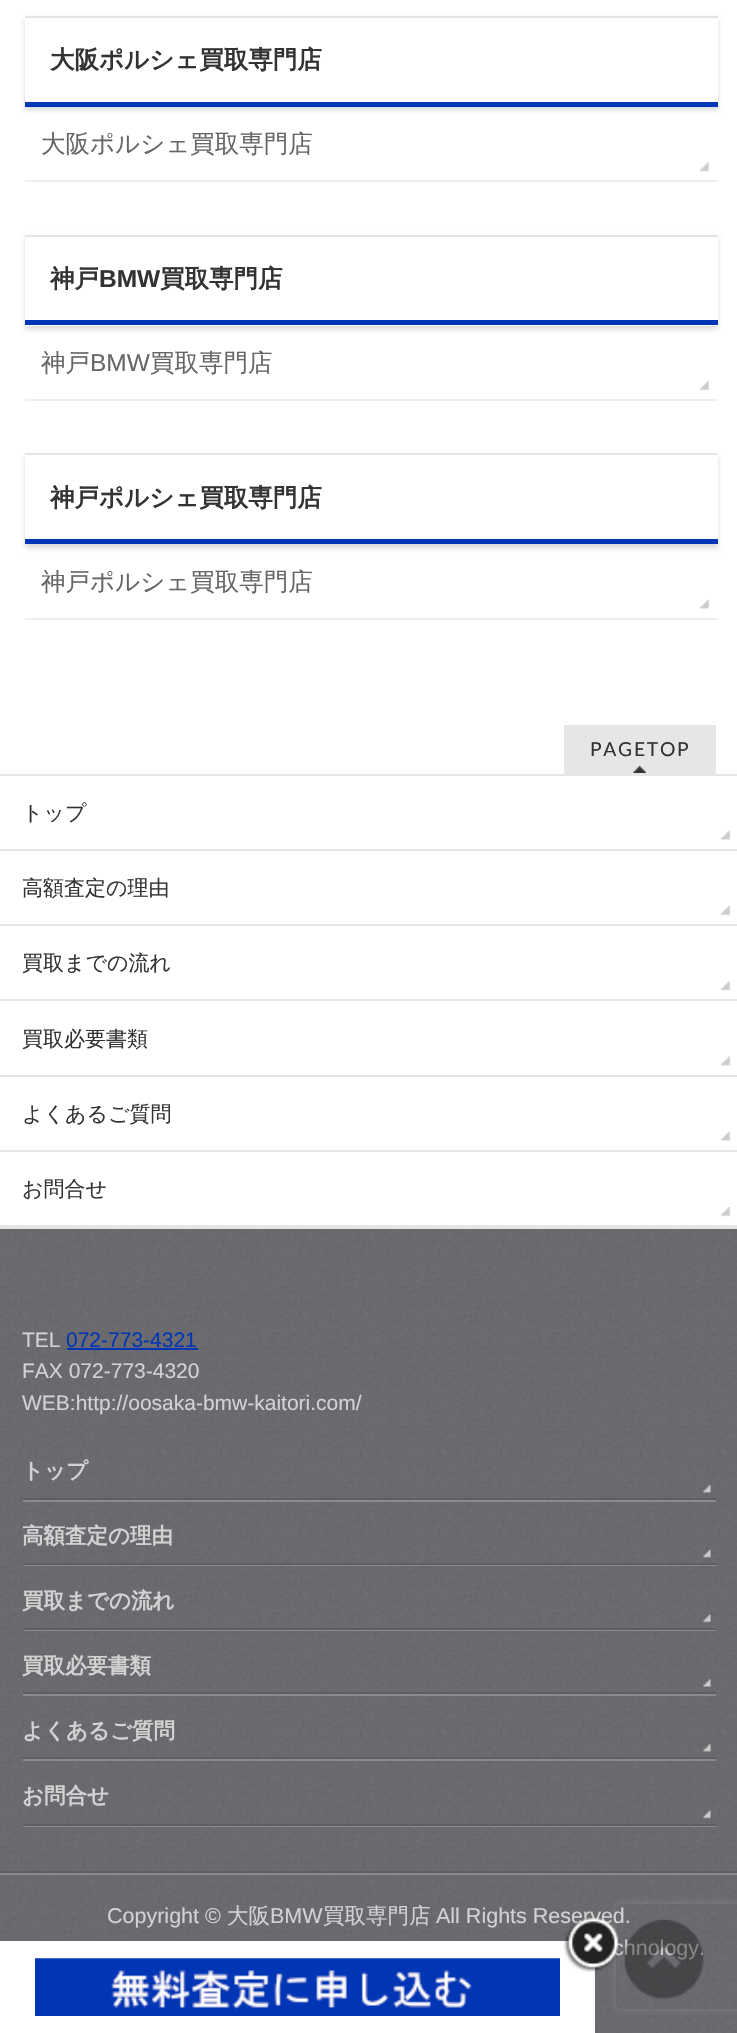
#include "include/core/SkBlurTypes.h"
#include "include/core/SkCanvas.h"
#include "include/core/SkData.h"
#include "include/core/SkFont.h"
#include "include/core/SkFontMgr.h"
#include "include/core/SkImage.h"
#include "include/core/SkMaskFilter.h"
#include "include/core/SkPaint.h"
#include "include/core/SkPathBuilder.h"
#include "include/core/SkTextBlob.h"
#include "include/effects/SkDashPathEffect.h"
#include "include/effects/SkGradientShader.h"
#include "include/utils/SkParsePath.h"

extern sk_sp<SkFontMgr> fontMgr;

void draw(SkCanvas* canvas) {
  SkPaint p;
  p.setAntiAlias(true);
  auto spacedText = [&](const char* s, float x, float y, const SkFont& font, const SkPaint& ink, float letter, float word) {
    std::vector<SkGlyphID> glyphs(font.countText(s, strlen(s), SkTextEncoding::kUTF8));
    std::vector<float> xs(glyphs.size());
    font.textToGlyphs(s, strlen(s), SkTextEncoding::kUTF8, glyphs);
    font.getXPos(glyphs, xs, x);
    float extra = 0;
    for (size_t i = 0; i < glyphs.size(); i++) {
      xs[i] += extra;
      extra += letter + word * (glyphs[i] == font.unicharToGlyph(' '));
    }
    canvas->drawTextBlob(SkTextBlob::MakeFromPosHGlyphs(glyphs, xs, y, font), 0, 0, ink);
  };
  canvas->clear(SK_ColorWHITE);
  canvas->save();
  canvas->clipPath(SkPathBuilder(SkPathFillType::kEvenOdd).moveTo(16, 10).lineTo(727, 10).lineTo(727, 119).lineTo(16, 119).close().moveTo(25, 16).lineTo(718, 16).lineTo(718, 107).lineTo(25, 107).close().detach(), true);
  p.setColor(SkColorSetARGB(38, 0, 0, 0));
  p.setMaskFilter(SkMaskFilter::MakeBlur(kNormal_SkBlurStyle, 2.5f));
  canvas->drawRect(SkRect::MakeLTRB(25, 19, 718, 110), p);
  p.setMaskFilter(nullptr);
  canvas->restore();
  p.setColor(SkColorSetRGB(229, 229, 229));
  canvas->drawRect(SkRect::MakeLTRB(25, 16, 718, 18), p);
  p.setColor(SkColorSetRGB(0, 54, 181));
  canvas->drawRect(SkRect::MakeLTRB(25, 102, 718, 107), p);
  p.setColor(SkColorSetRGB(238, 238, 238));
  canvas->drawRect(SkRect::MakeLTRB(25, 180, 718, 182), p);
  canvas->drawImageRect(SkImages::DeferredFromEncodedData(SkData::MakeFromFileName("images/1.png")), SkRect::MakeLTRB(700, 162, 710, 172), SkSamplingOptions());
  canvas->save();
  canvas->clipPath(SkPathBuilder(SkPathFillType::kEvenOdd).moveTo(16, 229).lineTo(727, 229).lineTo(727, 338).lineTo(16, 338).close().moveTo(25, 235).lineTo(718, 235).lineTo(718, 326).lineTo(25, 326).close().detach(), true);
  p.setColor(SkColorSetARGB(38, 0, 0, 0));
  p.setMaskFilter(SkMaskFilter::MakeBlur(kNormal_SkBlurStyle, 2.5f));
  canvas->drawRect(SkRect::MakeLTRB(25, 238, 718, 329), p);
  p.setMaskFilter(nullptr);
  canvas->restore();
  p.setColor(SkColorSetRGB(229, 229, 229));
  canvas->drawRect(SkRect::MakeLTRB(25, 235, 718, 237), p);
  p.setColor(SkColorSetRGB(0, 54, 181));
  canvas->drawRect(SkRect::MakeLTRB(25, 320, 718, 325), p);
  p.setColor(SkColorSetRGB(238, 238, 238));
  canvas->drawRect(SkRect::MakeLTRB(25, 399, 718, 401), p);
  canvas->drawImageRect(SkImages::DeferredFromEncodedData(SkData::MakeFromFileName("images/2.png")), SkRect::MakeLTRB(700, 381, 710, 391), SkSamplingOptions());
  canvas->save();
  canvas->clipPath(SkPathBuilder(SkPathFillType::kEvenOdd).moveTo(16, 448).lineTo(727, 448).lineTo(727, 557).lineTo(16, 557).close().moveTo(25, 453).lineTo(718, 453).lineTo(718, 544).lineTo(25, 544).close().detach(), true);
  p.setColor(SkColorSetARGB(38, 0, 0, 0));
  p.setMaskFilter(SkMaskFilter::MakeBlur(kNormal_SkBlurStyle, 2.5f));
  canvas->drawRect(SkRect::MakeLTRB(25, 457, 718, 548), p);
  p.setMaskFilter(nullptr);
  canvas->restore();
  p.setColor(SkColorSetRGB(229, 229, 229));
  canvas->drawRect(SkRect::MakeLTRB(25, 453, 718, 455), p);
  p.setColor(SkColorSetRGB(0, 54, 181));
  canvas->drawRect(SkRect::MakeLTRB(25, 539, 718, 544), p);
  p.setColor(SkColorSetRGB(238, 238, 238));
  canvas->drawRect(SkRect::MakeLTRB(25, 618, 718, 620), p);
  canvas->drawImageRect(SkImages::DeferredFromEncodedData(SkData::MakeFromFileName("images/3.png")), SkRect::MakeLTRB(700, 599, 710, 609), SkSamplingOptions());
  p.setColor(SkColorSetRGB(230, 230, 230));
  canvas->drawRect(SkRect::MakeLTRB(564, 725, 716, 774), p);
  canvas->drawImageRect(SkImages::DeferredFromEncodedData(SkData::MakeFromFileName("images/4.png")), SkRect::MakeLTRB(633, 766, 646, 773), SkSamplingOptions());
  canvas->drawRect(SkRect::MakeLTRB(0, 774, 737, 776), p);
  canvas->drawRect(SkRect::MakeLTRB(0, 1225, 737, 1229), p);
  canvas->drawImageRect(SkImages::DeferredFromEncodedData(SkData::MakeFromFileName("images/3.png")), SkRect::MakeLTRB(721, 830, 731, 840), SkSamplingOptions());
  canvas->drawRect(SkRect::MakeLTRB(0, 849, 737, 851), p);
  canvas->drawImageRect(SkImages::DeferredFromEncodedData(SkData::MakeFromFileName("images/2.png")), SkRect::MakeLTRB(721, 906, 731, 916), SkSamplingOptions());
  canvas->drawRect(SkRect::MakeLTRB(0, 924, 737, 926), p);
  canvas->drawImageRect(SkImages::DeferredFromEncodedData(SkData::MakeFromFileName("images/1.png")), SkRect::MakeLTRB(721, 981, 731, 991), SkSamplingOptions());
  canvas->drawRect(SkRect::MakeLTRB(0, 999, 737, 1001), p);
  canvas->drawImageRect(SkImages::DeferredFromEncodedData(SkData::MakeFromFileName("images/5.png")), SkRect::MakeLTRB(721, 1056, 731, 1066), SkSamplingOptions());
  canvas->drawRect(SkRect::MakeLTRB(0, 1075, 737, 1077), p);
  canvas->drawImageRect(SkImages::DeferredFromEncodedData(SkData::MakeFromFileName("images/3.png")), SkRect::MakeLTRB(721, 1131, 731, 1141), SkSamplingOptions());
  canvas->drawRect(SkRect::MakeLTRB(0, 1150, 737, 1152), p);
  canvas->drawImageRect(SkImages::DeferredFromEncodedData(SkData::MakeFromFileName("images/2.png")), SkRect::MakeLTRB(721, 1207, 731, 1217), SkSamplingOptions());
  canvas->drawImageRect(SkImages::DeferredFromEncodedData(SkData::MakeFromFileName("images/6.png")), SkRect::MakeLTRB(0, 1229, 737, 1871), SkSamplingOptions());
  p.setColor(SkColorSetRGB(95, 94, 99));
  canvas->drawRect(SkRect::MakeLTRB(0, 1871, 737, 1873), p);
  p.setColor(SkColorSetRGB(0, 54, 181));
  canvas->drawRect(SkRect::MakeLTRB(67, 1348, 198, 1350), p);
  p.setColor(SkColorSetRGB(138, 137, 140));
  canvas->drawPath(SkPathBuilder().moveTo(23, 1500).lineTo(23, 1502).lineTo(716, 1502).lineTo(716, 1446).lineTo(716, 1500).close().detach(), p);
  canvas->drawImageRect(SkImages::DeferredFromEncodedData(SkData::MakeFromFileName("images/7.png")), SkRect::MakeLTRB(703, 1485, 711, 1493), SkSamplingOptions());
  p.setColor(SkColorSetRGB(95, 94, 99));
  canvas->drawRect(SkRect::MakeLTRB(23, 1498, 716, 1500), p);
  p.setColor(SkColorSetRGB(138, 137, 140));
  canvas->drawPath(SkPathBuilder().moveTo(23, 1564).lineTo(23, 1566).lineTo(716, 1566).lineTo(716, 1512).lineTo(716, 1564).close().detach(), p);
  canvas->drawImageRect(SkImages::DeferredFromEncodedData(SkData::MakeFromFileName("images/8.png")), SkRect::MakeLTRB(703, 1550, 711, 1558), SkSamplingOptions());
  p.setColor(SkColorSetRGB(95, 94, 99));
  canvas->drawRect(SkRect::MakeLTRB(23, 1563, 716, 1565), p);
  p.setColor(SkColorSetRGB(138, 137, 140));
  canvas->drawPath(SkPathBuilder().moveTo(23, 1629).lineTo(23, 1631).lineTo(716, 1631).lineTo(716, 1577).lineTo(716, 1629).close().detach(), p);
  canvas->drawImageRect(SkImages::DeferredFromEncodedData(SkData::MakeFromFileName("images/9.png")), SkRect::MakeLTRB(703, 1614, 711, 1623), SkSamplingOptions());
  p.setColor(SkColorSetRGB(95, 94, 99));
  canvas->drawRect(SkRect::MakeLTRB(23, 1628, 716, 1630), p);
  p.setColor(SkColorSetRGB(138, 137, 140));
  canvas->drawPath(SkPathBuilder().moveTo(23, 1694).lineTo(23, 1696).lineTo(716, 1696).lineTo(716, 1642).lineTo(716, 1694).close().detach(), p);
  canvas->drawImageRect(SkImages::DeferredFromEncodedData(SkData::MakeFromFileName("images/10.png")), SkRect::MakeLTRB(703, 1679, 711, 1687), SkSamplingOptions());
  p.setColor(SkColorSetRGB(95, 94, 99));
  canvas->drawRect(SkRect::MakeLTRB(23, 1692, 716, 1694), p);
  p.setColor(SkColorSetRGB(138, 137, 140));
  canvas->drawPath(SkPathBuilder().moveTo(23, 1759).lineTo(23, 1761).lineTo(716, 1761).lineTo(716, 1706).lineTo(716, 1759).close().detach(), p);
  canvas->drawImageRect(SkImages::DeferredFromEncodedData(SkData::MakeFromFileName("images/11.png")), SkRect::MakeLTRB(703, 1744, 711, 1752), SkSamplingOptions());
  p.setColor(SkColorSetRGB(95, 94, 99));
  canvas->drawRect(SkRect::MakeLTRB(23, 1757, 716, 1759), p);
  p.setColor(SkColorSetRGB(138, 137, 140));
  canvas->drawPath(SkPathBuilder().moveTo(23, 1825).lineTo(23, 1827).lineTo(716, 1827).lineTo(716, 1771).lineTo(716, 1825).close().detach(), p);
  canvas->drawImageRect(SkImages::DeferredFromEncodedData(SkData::MakeFromFileName("images/12.png")), SkRect::MakeLTRB(703, 1810, 711, 1819), SkSamplingOptions());
  p.setColor(SkColorSetRGB(95, 94, 99));
  canvas->drawRect(SkRect::MakeLTRB(23, 1824, 716, 1826), p);
  canvas->drawImageRect(SkImages::DeferredFromEncodedData(SkData::MakeFromFileName("images/13.png")), SkRect::MakeLTRB(0, 1875, 737, 2033), SkSamplingOptions());
  p.setColor(SkColorSetRGB(138, 137, 140));
  canvas->drawRect(SkRect::MakeLTRB(0, 1873, 737, 1875), p);
  p.setColor(SK_ColorWHITE);
  canvas->drawRect(SkRect::MakeLTRB(0, 1941, 595, 2033), p);
  canvas->drawImageRect(SkImages::DeferredFromEncodedData(SkData::MakeFromFileName("images/16.png")), SkRect::MakeLTRB(35, 1958, 560, 2016), SkSamplingOptions());
  canvas->save();
  canvas->clipPath(SkPathBuilder(SkPathFillType::kEvenOdd).moveTo(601, 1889).lineTo(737, 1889).lineTo(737, 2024).lineTo(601, 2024).close().moveTo(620, 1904).lineTo(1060, 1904).cubicTo(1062, 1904, 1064, 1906, 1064, 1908).lineTo(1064, 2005).cubicTo(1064, 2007, 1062, 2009, 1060, 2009).lineTo(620, 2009).cubicTo(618, 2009, 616, 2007, 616, 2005).lineTo(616, 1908).cubicTo(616, 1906, 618, 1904, 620, 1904).close().detach(), true);
  p.setColor(SkColorSetRGB(128, 128, 128));
  p.setMaskFilter(SkMaskFilter::MakeBlur(kNormal_SkBlurStyle, 4.5f));
  canvas->drawRoundRect(SkRect::MakeLTRB(616, 1904, 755, 2009), 4, 4, p);
  p.setMaskFilter(nullptr);
  canvas->restore();
  SkFont font1(fontMgr->matchFamilyStyle("WenQuanYi Zen Hei", SkFontStyle::Bold()), 24.5f);
  font1.setSubpixel(true);
  p.setColor(SkColorSetRGB(51, 51, 51));
  canvas->drawString("大阪ポルシェ買取専門店", 50, 68, font1, p);
  SkFont font2(fontMgr->matchFamilyStyle("WenQuanYi Zen Hei", SkFontStyle(500, SkFontStyle::kNormal_Width, SkFontStyle::kUpright_Slant)), 24.5f);
  font2.setSubpixel(true);
  p.setColor(SkColorSetRGB(102, 102, 102));
  canvas->drawString("大阪ポルシェ買取専門店", 41, 152, font2, p);
  p.setColor(SkColorSetRGB(51, 51, 51));
  canvas->drawString("神戸", 50, 287, font1, p);
  SkFont font3(fontMgr->matchFamilyStyle("Liberation Sans", SkFontStyle::Bold()), 24.5f);
  font3.setSubpixel(true);
  canvas->drawString("BMW", 99, 287, font3, p);
  canvas->drawString("買取専門店", 160, 287, font1, p);
  p.setColor(SkColorSetRGB(102, 102, 102));
  canvas->drawString("神戸", 41, 371, font2, p);
  SkFont font4(fontMgr->matchFamilyStyle("Liberation Sans", SkFontStyle::Normal()), 24.5f);
  font4.setSubpixel(true);
  canvas->drawString("BMW", 90, 371, font4, p);
  canvas->drawString("買取専門店", 150, 371, font2, p);
  p.setColor(SkColorSetRGB(51, 51, 51));
  canvas->drawString("神戸ポルシェ買取専門店", 50, 506, font1, p);
  p.setColor(SkColorSetRGB(102, 102, 102));
  canvas->drawString("神戸ポルシェ買取専門店", 41, 590, font2, p);
  SkFont font5(fontMgr->matchFamilyStyle("Lato", SkFontStyle::Normal()), 19.25f);
  font5.setSubpixel(true);
  p.setColor(SkColorSetRGB(51, 51, 51));
  spacedText("PAGETOP", 590, 756, font5, p, 1.75f, 0);
  SkFont font6(fontMgr->matchFamilyStyle("WenQuanYi Zen Hei", SkFontStyle(500, SkFontStyle::kNormal_Width, SkFontStyle::kUpright_Slant)), 21);
  font6.setSubpixel(true);
  canvas->drawString("トップ", 22, 820, font6, p);
  canvas->drawString("高額査定の理由", 22, 895, font6, p);
  canvas->drawString("買取までの流れ", 22, 970, font6, p);
  canvas->drawString("買取必要書類", 22, 1046, font6, p);
  canvas->drawString("よくあるご質問", 22, 1121, font6, p);
  canvas->drawString("お問合せ", 22, 1196, font6, p);
  SkFont font7(fontMgr->matchFamilyStyle("Liberation Sans", SkFontStyle::Normal()), 21);
  font7.setSubpixel(true);
  p.setColor(SkColorSetRGB(210, 210, 211));
  canvas->drawString("TEL", 22, 1347, font7, p);
  p.setColor(SkColorSetRGB(0, 54, 181));
  canvas->drawString("072-773-4321", 66, 1347, font7, p);
  p.setColor(SkColorSetRGB(210, 210, 211));
  canvas->drawString("FAX 072-773-4320", 22, 1378, font7, p);
  canvas->drawString("WEB:http://oosaka-bmw-kaitori.com/", 22, 1410, font7, p);
  SkFont font8(fontMgr->matchFamilyStyle("WenQuanYi Zen Hei", SkFontStyle::Bold()), 21.5f);
  font8.setSubpixel(true);
  canvas->drawString("トップ", 22, 1478, font8, p);
  canvas->drawString("高額査定の理由", 22, 1543, font8, p);
  canvas->drawString("買取までの流れ", 22, 1608, font8, p);
  canvas->drawString("買取必要書類", 22, 1673, font8, p);
  canvas->drawString("よくあるご質問", 22, 1738, font8, p);
  canvas->drawString("お問合せ", 22, 1803, font8, p);
  SkFont font9(fontMgr->matchFamilyStyle("Liberation Sans", SkFontStyle::Normal()), 21.5f);
  font9.setSubpixel(true);
  canvas->drawString("Copyright ©", 107, 1923, font9, p);
  SkFont font10(fontMgr->matchFamilyStyle("WenQuanYi Zen Hei", SkFontStyle(500, SkFontStyle::kNormal_Width, SkFontStyle::kUpright_Slant)), 21.5f);
  font10.setSubpixel(true);
  canvas->drawString("大阪", 227, 1923, font10, p);
  canvas->drawString("BMW", 270, 1923, font9, p);
  canvas->drawString("買取専門店", 323, 1923, font10, p);
  canvas->drawString("All Rights Reserved.", 436, 1923, font9, p);
  p.setColor(SkColorSetRGB(204, 204, 204));
  canvas->drawString("chnology.", 613, 1955, font9, p);
  canvas->drawImageRect(SkImages::DeferredFromEncodedData(SkData::MakeFromFileName("images/14.png")), SkRect::MakeLTRB(624, 1919, 704, 1999), SkSamplingOptions());
  canvas->drawImageRect(SkImages::DeferredFromEncodedData(SkData::MakeFromFileName("images/15.png")), SkRect::MakeLTRB(563, 1916, 620, 1972), SkSamplingOptions());
}
